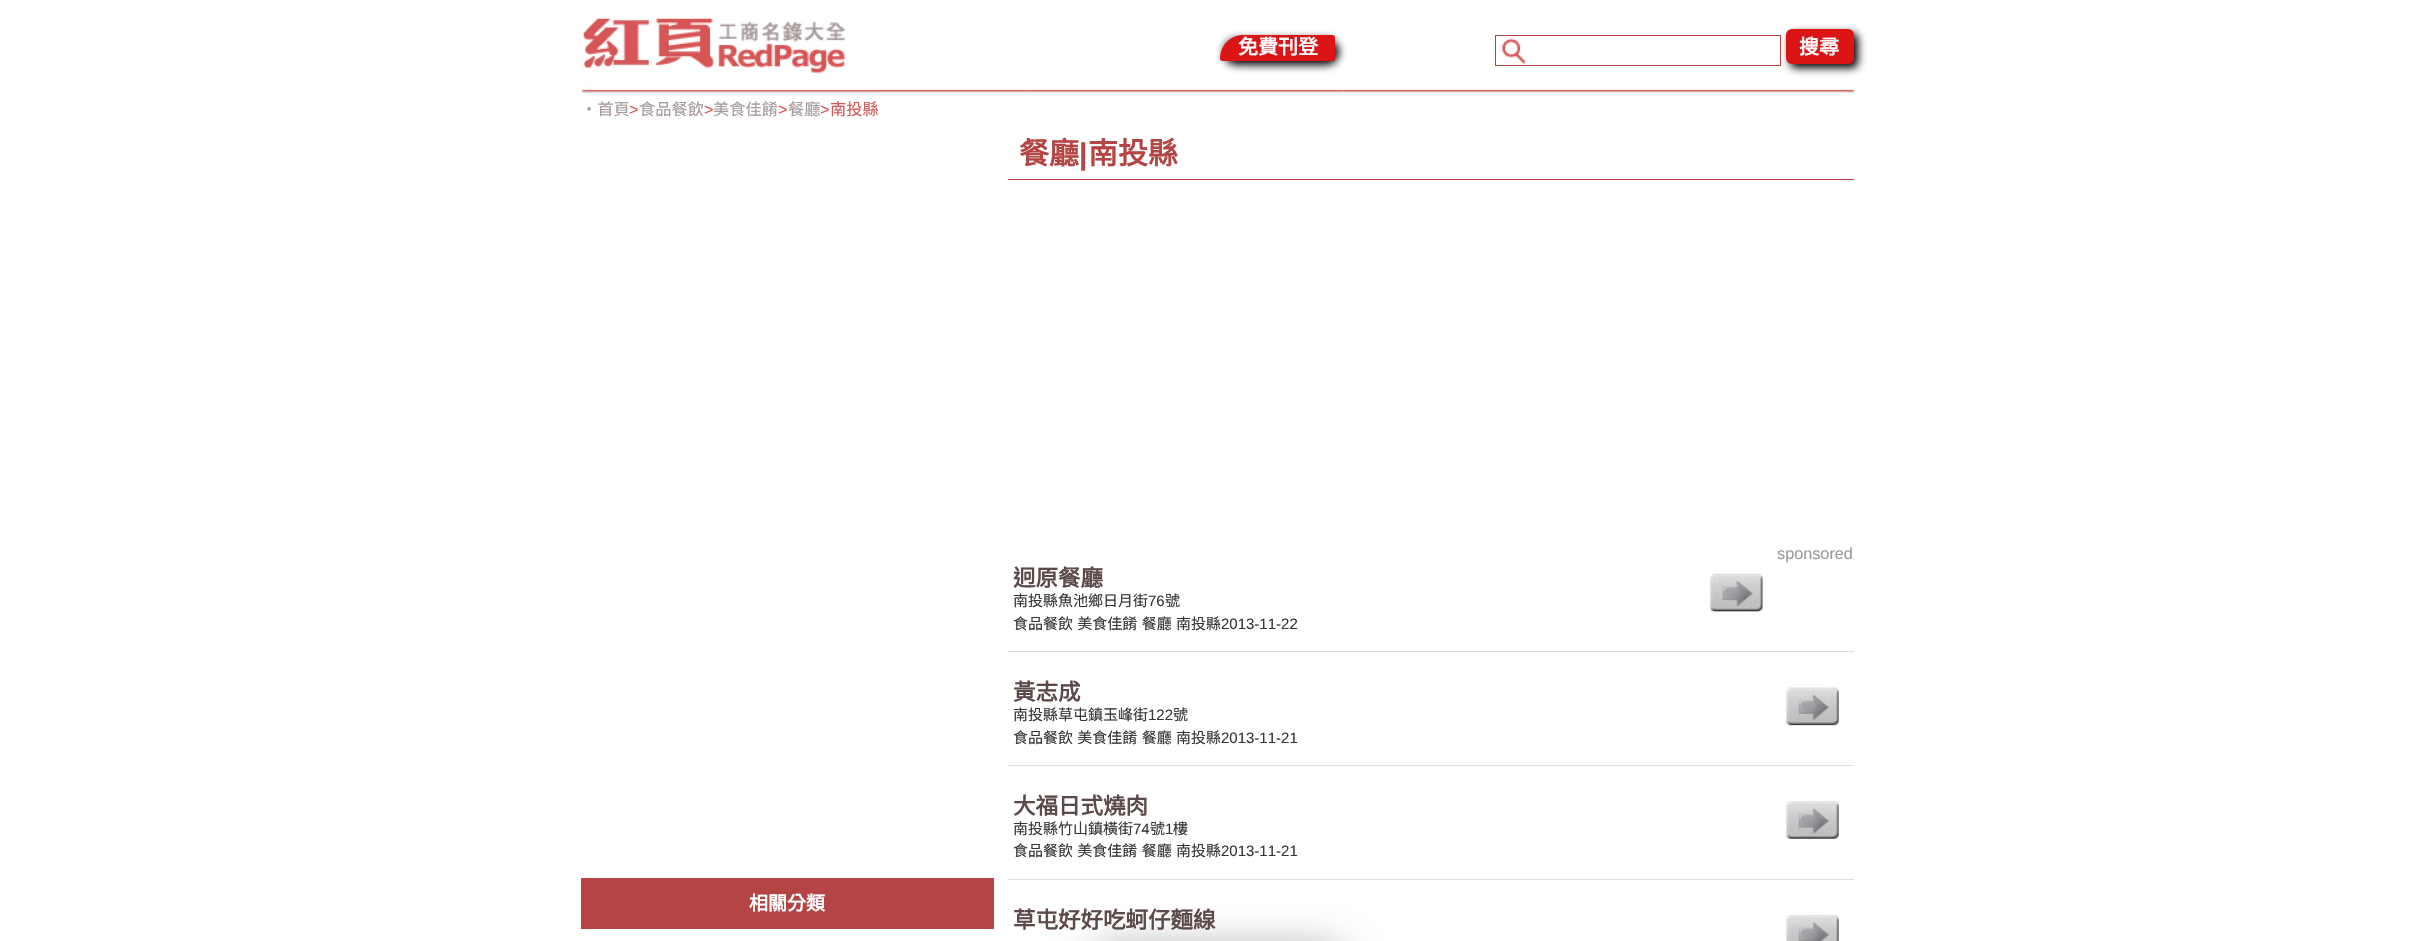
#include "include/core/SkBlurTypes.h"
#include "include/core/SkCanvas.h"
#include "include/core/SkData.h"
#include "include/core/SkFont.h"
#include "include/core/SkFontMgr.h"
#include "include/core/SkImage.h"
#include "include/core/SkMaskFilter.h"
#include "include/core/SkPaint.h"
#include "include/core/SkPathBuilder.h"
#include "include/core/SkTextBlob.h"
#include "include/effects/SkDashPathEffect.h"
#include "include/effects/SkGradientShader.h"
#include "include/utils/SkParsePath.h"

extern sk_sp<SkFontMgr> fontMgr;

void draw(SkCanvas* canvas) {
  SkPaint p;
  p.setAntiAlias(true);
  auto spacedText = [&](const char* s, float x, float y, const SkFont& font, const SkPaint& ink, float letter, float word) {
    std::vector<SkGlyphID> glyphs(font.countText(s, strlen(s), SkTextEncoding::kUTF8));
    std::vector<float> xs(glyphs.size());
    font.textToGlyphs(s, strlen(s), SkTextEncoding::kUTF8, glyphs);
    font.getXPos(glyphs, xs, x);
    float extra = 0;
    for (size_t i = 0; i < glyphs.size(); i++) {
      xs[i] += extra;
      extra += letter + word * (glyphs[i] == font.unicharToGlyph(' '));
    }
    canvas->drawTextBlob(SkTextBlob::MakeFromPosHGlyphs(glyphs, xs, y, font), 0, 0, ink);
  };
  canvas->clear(SK_ColorWHITE);
  canvas->drawImageRect(SkImages::DeferredFromEncodedData(SkData::MakeFromFileName("images/1.png")), SkRect::MakeLTRB(581, 89, 1027, 93), SkSamplingOptions());
  canvas->drawImageRect(SkImages::DeferredFromEncodedData(SkData::MakeFromFileName("images/2.png")), SkRect::MakeLTRB(581, 18, 878, 93), SkSamplingOptions());
  canvas->drawImageRect(SkImages::DeferredFromEncodedData(SkData::MakeFromFileName("images/3.png")), SkRect::MakeLTRB(1026, 89, 1344, 93), SkSamplingOptions());
  p.setColor(SK_ColorBLACK);
  p.setMaskFilter(SkMaskFilter::MakeBlur(kNormal_SkBlurStyle, 4));
  canvas->drawRoundRect(SkRect::MakeLTRB(1224, 39, 1339, 65), 24, 24, p);
  p.setMaskFilter(nullptr);
  p.setColor(SkColorSetRGB(219, 21, 21));
  canvas->drawPath(SkPathBuilder().moveTo(1243.5f, 35).lineTo(1332.5f, 35).cubicTo(1334, 35, 1335, 36, 1335, 37.5f).lineTo(1335, 58.5f).cubicTo(1335, 60, 1334, 61, 1332.5f, 61).lineTo(1222.5f, 61).cubicTo(1221, 61, 1220, 60, 1220, 58.5f).cubicTo(1220, 45.5f, 1230.5f, 35, 1243.5f, 35).close().detach(), p);
  canvas->drawImageRect(SkImages::DeferredFromEncodedData(SkData::MakeFromFileName("images/4.png")), SkRect::MakeLTRB(1343, 89, 1854, 93), SkSamplingOptions());
  canvas->drawImageRect(SkImages::DeferredFromEncodedData(SkData::MakeFromFileName("images/5.png")), SkRect::MakeLTRB(1502, 38, 1526, 64), SkSamplingOptions());
  p.setStyle(SkPaint::kStroke_Style);
  p.setStrokeWidth(1);
  p.setColor(SkColorSetRGB(181, 69, 69));
  canvas->drawRect(SkRect::MakeLTRB(1495.5f, 35.5f, 1780.5f, 65.5f), p);
  p.setStyle(SkPaint::kFill_Style);
  p.setColor(SK_ColorBLACK);
  p.setMaskFilter(SkMaskFilter::MakeBlur(kNormal_SkBlurStyle, 4));
  canvas->drawRoundRect(SkRect::MakeLTRB(1790, 33, 1858, 68), 6, 6, p);
  p.setMaskFilter(nullptr);
  p.setColor(SkColorSetRGB(219, 21, 21));
  canvas->drawRoundRect(SkRect::MakeLTRB(1786, 29, 1854, 64), 6, 6, p);
  p.setColor(SkColorSetRGB(181, 69, 69));
  canvas->drawRect(SkRect::MakeLTRB(581, 878, 994, 929), p);
  canvas->drawRect(SkRect::MakeLTRB(1008, 179, 1854, 180), p);
  p.setColor(SkColorSetRGB(223, 223, 223));
  canvas->drawRect(SkRect::MakeLTRB(1008, 651, 1854, 652), p);
  canvas->drawImageRect(SkImages::DeferredFromEncodedData(SkData::MakeFromFileName("images/6.png")), SkRect::MakeLTRB(1710, 573, 1763, 612), SkSamplingOptions());
  canvas->drawRect(SkRect::MakeLTRB(1008, 765, 1854, 766), p);
  canvas->drawImageRect(SkImages::DeferredFromEncodedData(SkData::MakeFromFileName("images/7.png")), SkRect::MakeLTRB(1786, 687, 1839, 726), SkSamplingOptions());
  canvas->drawRect(SkRect::MakeLTRB(1008, 879, 1854, 880), p);
  canvas->drawImageRect(SkImages::DeferredFromEncodedData(SkData::MakeFromFileName("images/8.png")), SkRect::MakeLTRB(1786, 801, 1839, 839), SkSamplingOptions());
  canvas->drawImageRect(SkImages::DeferredFromEncodedData(SkData::MakeFromFileName("images/9.png")), SkRect::MakeLTRB(1786, 915, 1839, 941), SkSamplingOptions());
  p.setColor(SkColorSetARGB(77, 0, 0, 0));
  p.setMaskFilter(SkMaskFilter::MakeBlur(kNormal_SkBlurStyle, 19));
  canvas->drawRoundRect(SkRect::MakeLTRB(1088, 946, 1346, 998), 26, 26, p);
  p.setMaskFilter(nullptr);
  SkFont font1(fontMgr->matchFamilyStyle("Noto Sans CJK TC", SkFontStyle::Bold()), 20);
  font1.setSubpixel(true);
  p.setColor(SK_ColorWHITE);
  canvas->drawString("免費刊登", 1238, 54, font1, p);
  canvas->drawString("搜尋", 1799, 54, font1, p);
  SkFont font2(fontMgr->matchFamilyStyle("Noto Sans CJK TC", SkFontStyle::Normal()), 16.25f);
  font2.setSubpixel(true);
  p.setColor(SkColorSetRGB(167, 153, 153));
  canvas->drawString("‧首頁", 581, 115, font2, p);
  SkFont font3(fontMgr->matchFamilyStyle("Liberation Sans", SkFontStyle::Normal()), 16.25f);
  font3.setSubpixel(true);
  p.setColor(SkColorSetRGB(214, 86, 87));
  canvas->drawString(">", 629, 115, font3, p);
  p.setColor(SkColorSetRGB(167, 153, 153));
  canvas->drawString("食品餐飲", 639, 115, font2, p);
  p.setColor(SkColorSetRGB(214, 86, 87));
  canvas->drawString(">", 704, 115, font3, p);
  p.setColor(SkColorSetRGB(167, 153, 153));
  canvas->drawString("美食佳餚", 713, 115, font2, p);
  p.setColor(SkColorSetRGB(214, 86, 87));
  canvas->drawString(">", 778, 115, font3, p);
  p.setColor(SkColorSetRGB(167, 153, 153));
  canvas->drawString("餐廳", 788, 115, font2, p);
  p.setColor(SkColorSetRGB(214, 86, 87));
  canvas->drawString(">", 820, 115, font3, p);
  canvas->drawString("南投縣", 830, 115, font2, p);
  SkFont font4(fontMgr->matchFamilyStyle("Noto Sans CJK TC", SkFontStyle::Bold()), 19);
  font4.setSubpixel(true);
  p.setColor(SK_ColorWHITE);
  canvas->drawString("相關分類", 749, 910, font4, p);
  SkFont font5(fontMgr->matchFamilyStyle("Noto Sans CJK TC", SkFontStyle::Bold()), 30);
  font5.setSubpixel(true);
  p.setColor(SkColorSetRGB(181, 69, 69));
  canvas->drawString("餐廳", 1019, 164, font5, p);
  SkFont font6(fontMgr->matchFamilyStyle("Liberation Sans", SkFontStyle::Bold()), 30);
  font6.setSubpixel(true);
  canvas->drawString("|", 1079, 164, font6, p);
  canvas->drawString("南投縣", 1088, 164, font5, p);
  p.setColor(SkColorSetRGB(153, 153, 153));
  canvas->drawString("sponsored", 1777, 559, font3, p);
  SkFont font7(fontMgr->matchFamilyStyle("Noto Sans CJK TC", SkFontStyle::Bold()), 22.5f);
  font7.setSubpixel(true);
  p.setColor(SkColorSetRGB(92, 74, 74));
  canvas->drawString("迥原餐廳", 1013, 586, font7, p);
  SkFont font8(fontMgr->matchFamilyStyle("Noto Sans CJK TC", SkFontStyle::Normal()), 15);
  font8.setSubpixel(true);
  p.setColor(SkColorSetRGB(53, 53, 53));
  canvas->drawString("南投縣魚池鄉日月街", 1013, 606, font8, p);
  SkFont font9(fontMgr->matchFamilyStyle("Liberation Sans", SkFontStyle::Normal()), 15);
  font9.setSubpixel(true);
  canvas->drawString("76", 1148, 606, font9, p);
  canvas->drawString("號", 1165, 606, font8, p);
  spacedText("食品餐飲 美食佳餚 餐廳 南投縣", 1013, 629, font8, p, 0, 1);
  canvas->drawString("2013-11-22", 1221, 629, font9, p);
  p.setColor(SkColorSetRGB(92, 74, 74));
  canvas->drawString("黃志成", 1013, 700, font7, p);
  p.setColor(SkColorSetRGB(53, 53, 53));
  canvas->drawString("南投縣草屯鎮玉峰街", 1013, 720, font8, p);
  canvas->drawString("122", 1148, 720, font9, p);
  canvas->drawString("號", 1173, 720, font8, p);
  spacedText("食品餐飲 美食佳餚 餐廳 南投縣", 1013, 743, font8, p, 0, 1);
  canvas->drawString("2013-11-21", 1221, 743, font9, p);
  p.setColor(SkColorSetRGB(92, 74, 74));
  canvas->drawString("大福日式燒肉", 1013, 814, font7, p);
  p.setColor(SkColorSetRGB(53, 53, 53));
  canvas->drawString("南投縣竹山鎮橫街", 1013, 834, font8, p);
  canvas->drawString("74", 1133, 834, font9, p);
  canvas->drawString("號", 1150, 834, font8, p);
  canvas->drawString("1", 1165, 834, font9, p);
  canvas->drawString("樓", 1173, 834, font8, p);
  spacedText("食品餐飲 美食佳餚 餐廳 南投縣", 1013, 856, font8, p, 0, 1);
  canvas->drawString("2013-11-21", 1221, 856, font9, p);
  p.setColor(SkColorSetRGB(92, 74, 74));
  canvas->drawString("草屯好好吃蚵仔麵線", 1013, 928, font7, p);
}
